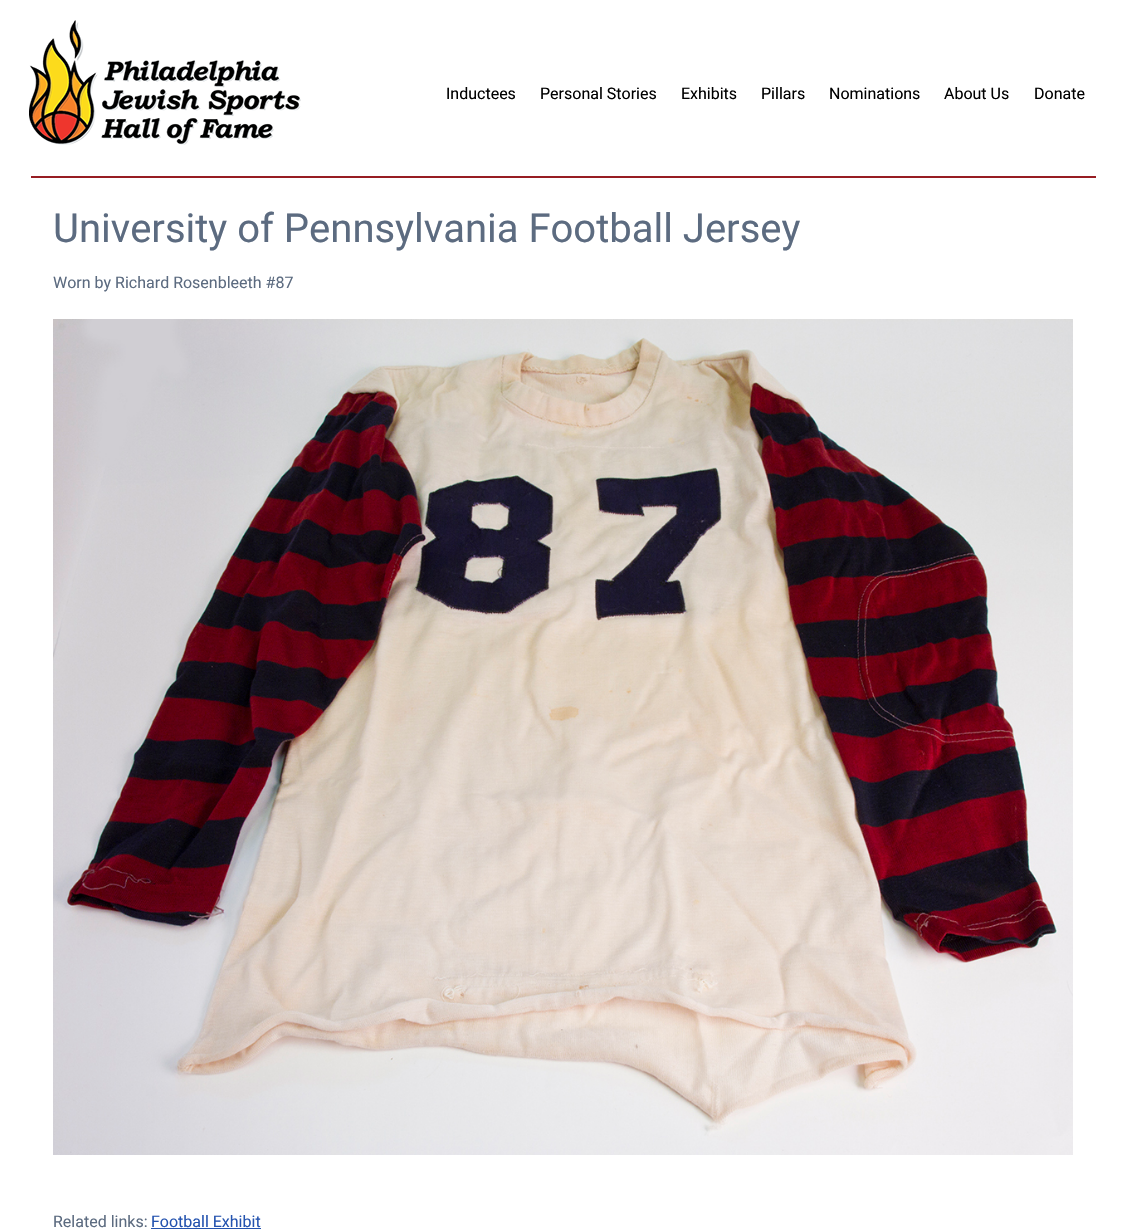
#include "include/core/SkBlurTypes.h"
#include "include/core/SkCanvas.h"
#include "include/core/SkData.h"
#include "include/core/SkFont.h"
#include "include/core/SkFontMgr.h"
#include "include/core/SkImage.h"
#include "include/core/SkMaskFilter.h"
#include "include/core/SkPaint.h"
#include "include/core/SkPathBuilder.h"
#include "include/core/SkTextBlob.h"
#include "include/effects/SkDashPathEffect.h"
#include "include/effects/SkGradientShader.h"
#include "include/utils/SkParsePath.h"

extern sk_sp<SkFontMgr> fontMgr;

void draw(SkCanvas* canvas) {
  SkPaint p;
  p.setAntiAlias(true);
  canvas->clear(SK_ColorWHITE);
  canvas->drawImageRect(SkImages::DeferredFromEncodedData(SkData::MakeFromFileName("images/1.png")), SkRect::MakeLTRB(29, 20, 301, 145), SkSamplingOptions());
  p.setColor(SkColorSetRGB(151, 29, 35));
  canvas->drawRect(SkRect::MakeLTRB(31, 176, 1096, 178), p);
  canvas->drawImageRect(SkImages::DeferredFromEncodedData(SkData::MakeFromFileName("images/2.png")), SkRect::MakeLTRB(53, 319, 1073, 1155), SkSamplingOptions());
  p.setColor(SkColorSetRGB(36, 83, 175));
  canvas->drawRect(SkRect::MakeLTRB(151, 1228, 261, 1229), p);
  SkFont font1(fontMgr->matchFamilyStyle("Roboto", SkFontStyle::Normal()), 16);
  font1.setSubpixel(true);
  p.setColor(SK_ColorBLACK);
  canvas->drawString("Inductees", 446, 99, font1, p);
  canvas->drawString("Personal Stories", 540, 99, font1, p);
  canvas->drawString("Exhibits", 681, 99, font1, p);
  canvas->drawString("Pillars", 761, 99, font1, p);
  canvas->drawString("Nominations", 829, 99, font1, p);
  canvas->drawString("About Us", 944, 99, font1, p);
  canvas->drawString("Donate", 1034, 99, font1, p);
  SkFont font2(fontMgr->matchFamilyStyle("Roboto", SkFontStyle::Normal()), 40);
  font2.setSubpixel(true);
  p.setColor(SkColorSetRGB(92, 107, 128));
  canvas->drawString("University of Pennsylvania Football Jersey", 53, 242, font2, p);
  canvas->drawString("Worn by Richard Rosenbleeth #87", 53, 288, font1, p);
  canvas->drawString("Related links:", 53, 1227, font1, p);
  p.setColor(SkColorSetRGB(36, 83, 175));
  canvas->drawString("Football Exhibit", 151, 1227, font1, p);
}
